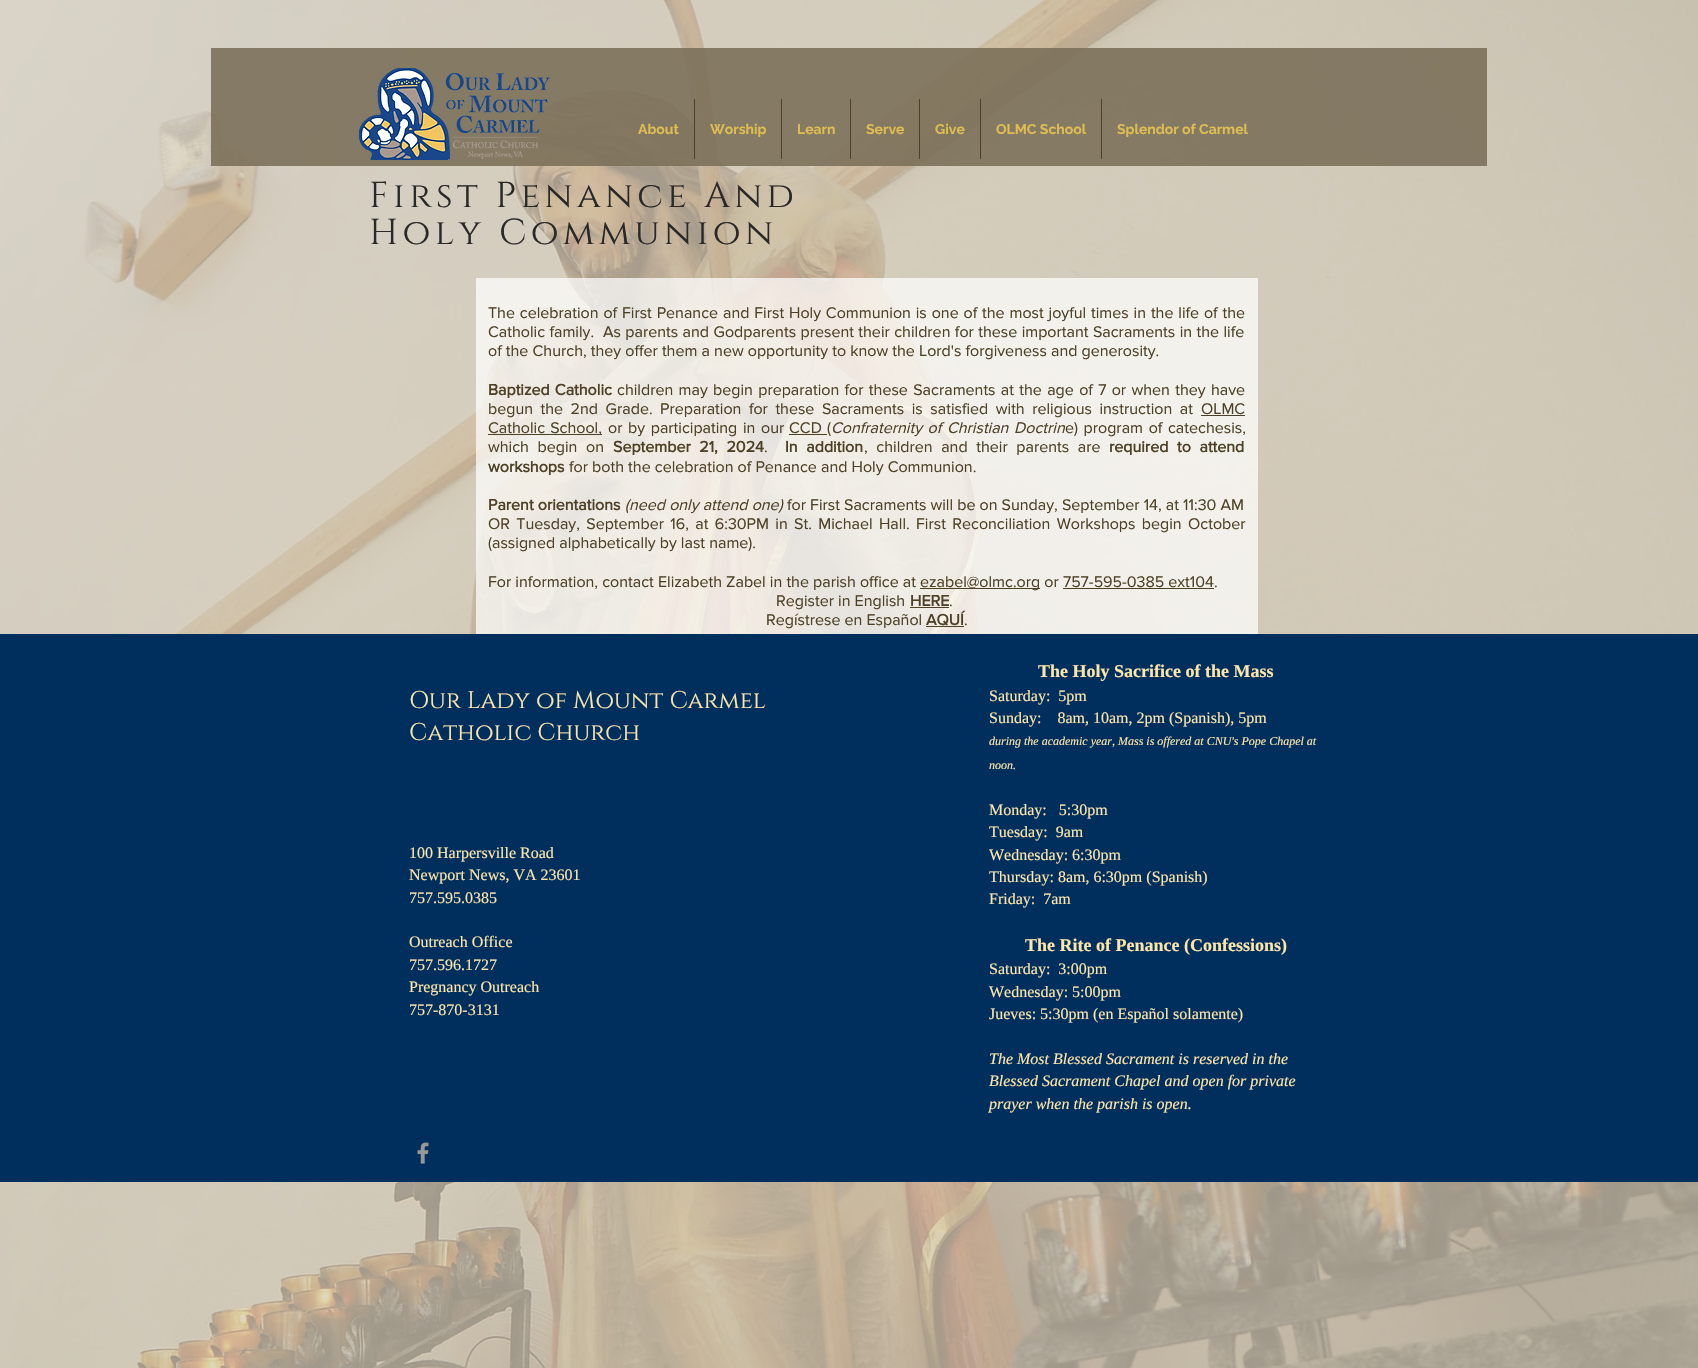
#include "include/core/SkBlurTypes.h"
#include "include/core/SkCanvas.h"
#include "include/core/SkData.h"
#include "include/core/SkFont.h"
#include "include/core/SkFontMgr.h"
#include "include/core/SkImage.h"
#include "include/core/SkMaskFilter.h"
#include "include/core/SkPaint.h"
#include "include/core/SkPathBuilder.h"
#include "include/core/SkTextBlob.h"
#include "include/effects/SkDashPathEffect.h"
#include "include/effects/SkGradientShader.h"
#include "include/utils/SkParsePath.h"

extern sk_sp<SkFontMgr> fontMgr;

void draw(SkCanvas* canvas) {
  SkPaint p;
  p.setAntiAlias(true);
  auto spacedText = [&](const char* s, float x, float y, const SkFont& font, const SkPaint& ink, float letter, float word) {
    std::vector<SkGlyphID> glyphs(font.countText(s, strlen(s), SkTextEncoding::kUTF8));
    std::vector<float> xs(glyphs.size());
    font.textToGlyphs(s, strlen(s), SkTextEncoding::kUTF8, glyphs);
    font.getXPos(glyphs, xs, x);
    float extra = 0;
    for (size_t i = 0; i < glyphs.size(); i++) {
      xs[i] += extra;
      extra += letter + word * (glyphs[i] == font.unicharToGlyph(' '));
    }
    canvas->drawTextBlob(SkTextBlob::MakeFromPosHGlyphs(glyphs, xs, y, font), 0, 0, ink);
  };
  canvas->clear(SkColorSetRGB(211, 202, 182));
  canvas->drawImageRect(SkImages::DeferredFromEncodedData(SkData::MakeFromFileName("images/1.png")), SkRect::MakeLTRB(0, 0, 1698, 1368), SkSamplingOptions());
  p.setColor(SkColorSetARGB(227, 122, 111, 89));
  canvas->drawRect(SkRect::MakeLTRB(211, 48, 1487, 166), p);
  canvas->drawImageRect(SkImages::DeferredFromEncodedData(SkData::MakeFromFileName("images/3.png")), SkRect::MakeLTRB(359, 70, 550, 160), SkSamplingOptions());
  canvas->drawImageRect(SkImages::DeferredFromEncodedData(SkData::MakeFromFileName("images/2.png")), SkRect::MakeLTRB(359, 68, 450, 159), SkSamplingOptions());
  p.setColor(SkColorSetRGB(77, 64, 36));
  canvas->drawRect(SkRect::MakeLTRB(694, 99, 695, 159), p);
  canvas->drawRect(SkRect::MakeLTRB(781, 99, 782, 159), p);
  canvas->drawRect(SkRect::MakeLTRB(850, 99, 851, 159), p);
  canvas->drawRect(SkRect::MakeLTRB(919, 99, 920, 159), p);
  canvas->drawRect(SkRect::MakeLTRB(980, 99, 981, 159), p);
  canvas->drawRect(SkRect::MakeLTRB(1101, 99, 1102, 159), p);
  p.setColor(SkColorSetARGB(184, 255, 255, 255));
  canvas->drawRect(SkRect::MakeLTRB(476, 278, 1258, 634), p);
  p.setColor(SkColorSetRGB(77, 64, 36));
  canvas->drawRect(SkRect::MakeLTRB(1201, 415, 1245, 416), p);
  canvas->drawRect(SkRect::MakeLTRB(488, 434, 602, 435), p);
  canvas->drawRect(SkRect::MakeLTRB(789, 434, 827, 435), p);
  canvas->drawRect(SkRect::MakeLTRB(920, 588, 1040, 589), p);
  canvas->drawRect(SkRect::MakeLTRB(1063, 588, 1214, 589), p);
  canvas->drawRect(SkRect::MakeLTRB(910, 607, 949, 608), p);
  canvas->drawRect(SkRect::MakeLTRB(926, 626, 964, 627), p);
  p.setColor(SkColorSetRGB(0, 46, 93));
  canvas->drawRect(SkRect::MakeLTRB(0, 634, 1698, 1182), p);
  canvas->drawImageRect(SkImages::DeferredFromEncodedData(SkData::MakeFromFileName("images/4.png")), SkRect::MakeLTRB(417, 1142, 429, 1164), SkSamplingOptions());
  SkFont font1(fontMgr->matchFamilyStyle("Raleway", SkFontStyle::Bold()), 14);
  font1.setSubpixel(true);
  p.setColor(SkColorSetRGB(222, 189, 82));
  canvas->drawString("About", 638, 134, font1, p);
  canvas->drawString("Worship", 710, 134, font1, p);
  canvas->drawString("Learn", 797, 134, font1, p);
  canvas->drawString("Serve", 866, 134, font1, p);
  canvas->drawString("Give", 935, 134, font1, p);
  canvas->drawString("OLMC School", 996, 134, font1, p);
  canvas->drawString("Splendor of Carmel", 1117, 134, font1, p);
  SkFont font2(fontMgr->matchFamilyStyle("Cinzel", SkFontStyle::Normal()), 36);
  font2.setSubpixel(true);
  p.setColor(SkColorSetRGB(41, 41, 41));
  spacedText("First Penance And", 369, 207, font2, p, 4.3f, 0);
  spacedText("Holy Communion", 369, 244, font2, p, 4.3f, 0);
  SkFont font3(fontMgr->matchFamilyStyle("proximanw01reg", SkFontStyle::Normal()), 16);
  font3.setSubpixel(true);
  p.setColor(SkColorSetRGB(77, 64, 36));
  spacedText("The celebration of First Penance and First Holy Communion is one of the most joyful times in the life of the", 488, 318, font3, p, 0, 0.75f);
  spacedText("Catholic family.  As parents and Godparents present their children for these important Sacraments in the life", 488, 337, font3, p, 0, 0.3f);
  canvas->drawString("of the Church, they offer them a new opportunity to know the Lord's forgiveness and generosity.", 488, 356, font3, p);
  SkFont font4(fontMgr->matchFamilyStyle("proximanw01reg", SkFontStyle::Bold()), 16);
  font4.setSubpixel(true);
  spacedText("Baptized Catholic", 488, 395, font4, p, 0, 1);
  spacedText("children may begin preparation for these Sacraments at the age of 7 or when they have", 617, 395, font3, p, 0, 1.2f);
  spacedText("begun the 2nd Grade. Preparation for these Sacraments is satisfied with religious instruction at", 488, 414, font3, p, 0, 3.4f);
  canvas->drawString("OLMC", 1201, 414, font3, p);
  spacedText("Catholic School,", 488, 433, font3, p, 0, 1);
  spacedText("or by participating in our", 608, 433, font3, p, 0, 1.5f);
  canvas->drawString("CCD", 789, 433, font3, p);
  canvas->drawString("(", 827, 433, font3, p);
  SkFont font5(fontMgr->matchFamilyStyle("proximanw01reg", SkFontStyle::Italic()), 16);
  font5.setSubpixel(true);
  spacedText("Confraternity of Christian Doctrin", 831, 433, font5, p, 0, 1.5f);
  spacedText("e) program of catechesis,", 1065, 433, font3, p, 0, 1.5f);
  spacedText("which begin on", 488, 452, font3, p, 0, 4.5f);
  spacedText("September 21, 2024", 613, 452, font4, p, 0, 4.5f);
  canvas->drawString(".", 764, 452, font3, p);
  spacedText("In addition", 785, 452, font4, p, 0, 4.5f);
  spacedText(", children and their parents are", 864, 452, font3, p, 0, 4.5f);
  spacedText("required to attend", 1109, 452, font4, p, 0, 4.5f);
  canvas->drawString("workshops", 488, 472, font4, p);
  canvas->drawString("for both the celebration of Penance and Holy Communion.", 569, 472, font3, p);
  canvas->drawString("Parent orientations", 488, 510, font4, p);
  canvas->drawString("(need only attend one)", 625, 510, font5, p);
  canvas->drawString("for First Sacraments will be on Sunday, September 14, at 11:30 AM", 787, 510, font3, p);
  spacedText("OR Tuesday, September 16, at 6:30PM in St. Michael Hall. First Reconciliation Workshops begin October", 488, 529, font3, p, 0, 2.25f);
  canvas->drawString("(assigned alphabetically by last name).", 488, 548, font3, p);
  canvas->drawString("For information, contact Elizabeth Zabel in the parish office at", 488, 587, font3, p);
  canvas->drawString("ezabel@olmc.org or 757-595-0385 ext104.", 920, 587, font3, p);
  canvas->drawString("Register in English", 776, 606, font3, p);
  canvas->drawString("HERE", 910, 606, font4, p);
  canvas->drawString(".", 949, 606, font3, p);
  canvas->drawString("Regístrese en Español", 766, 625, font3, p);
  canvas->drawString("AQUÍ", 926, 625, font4, p);
  canvas->drawString(".", 964, 625, font3, p);
  SkFont font6(fontMgr->matchFamilyStyle("Cinzel", SkFontStyle::Normal()), 24);
  font6.setSubpixel(true);
  p.setColor(SkColorSetRGB(254, 230, 170));
  canvas->drawString("Our Lady of Mount Carmel", 409, 708, font6, p);
  canvas->drawString("Catholic Church", 409, 740, font6, p);
  SkFont font7(fontMgr->matchFamilyStyle("Liberation Serif", SkFontStyle::Bold()), 18);
  font7.setSubpixel(true);
  canvas->drawString("The Holy Sacrifice of the Mass", 1038, 677, font7, p);
  SkFont font8(fontMgr->matchFamilyStyle("Liberation Serif", SkFontStyle::Normal()), 16);
  font8.setSubpixel(true);
  canvas->drawString("Saturday:  5pm", 989, 701, font8, p);
  canvas->drawString("Sunday:    8am, 10am, 2pm (Spanish), 5pm", 989, 723, font8, p);
  SkFont font9(fontMgr->matchFamilyStyle("Liberation Serif", SkFontStyle::Italic()), 12);
  font9.setSubpixel(true);
  canvas->drawString("during the academic year, Mass is offered at CNU's Pope Chapel at", 989, 745, font9, p);
  canvas->drawString("noon.", 989, 769, font9, p);
  canvas->drawString("Monday:   5:30pm", 989, 815, font8, p);
  canvas->drawString("Tuesday:  9am", 989, 837, font8, p);
  canvas->drawString("Wednesday: 6:30pm", 989, 860, font8, p);
  canvas->drawString("Thursday: 8am, 6:30pm (Spanish)", 989, 882, font8, p);
  canvas->drawString("Friday:  7am", 989, 904, font8, p);
  canvas->drawString("The Rite of Penance (Confessions)", 1025, 951, font7, p);
  canvas->drawString("Saturday:  3:00pm", 989, 974, font8, p);
  canvas->drawString("Wednesday: 5:00pm", 989, 997, font8, p);
  canvas->drawString("Jueves: 5:30pm (en Español solamente)", 989, 1019, font8, p);
  SkFont font10(fontMgr->matchFamilyStyle("Liberation Serif", SkFontStyle::Italic()), 16);
  font10.setSubpixel(true);
  canvas->drawString("The Most Blessed Sacrament is reserved in the", 989, 1064, font10, p);
  canvas->drawString("Blessed Sacrament Chapel and open for private", 989, 1086, font10, p);
  canvas->drawString("prayer when the parish is open.", 989, 1109, font10, p);
  canvas->drawString("100 Harpersville Road", 409, 858, font8, p);
  canvas->drawString("Newport News, VA 23601", 409, 880, font8, p);
  canvas->drawString("757.595.0385", 409, 903, font8, p);
  canvas->drawString("Outreach Office", 409, 947, font8, p);
  canvas->drawString("757.596.1727", 409, 970, font8, p);
  canvas->drawString("Pregnancy Outreach", 409, 992, font8, p);
  canvas->drawString("757-870-3131", 409, 1015, font8, p);
}
